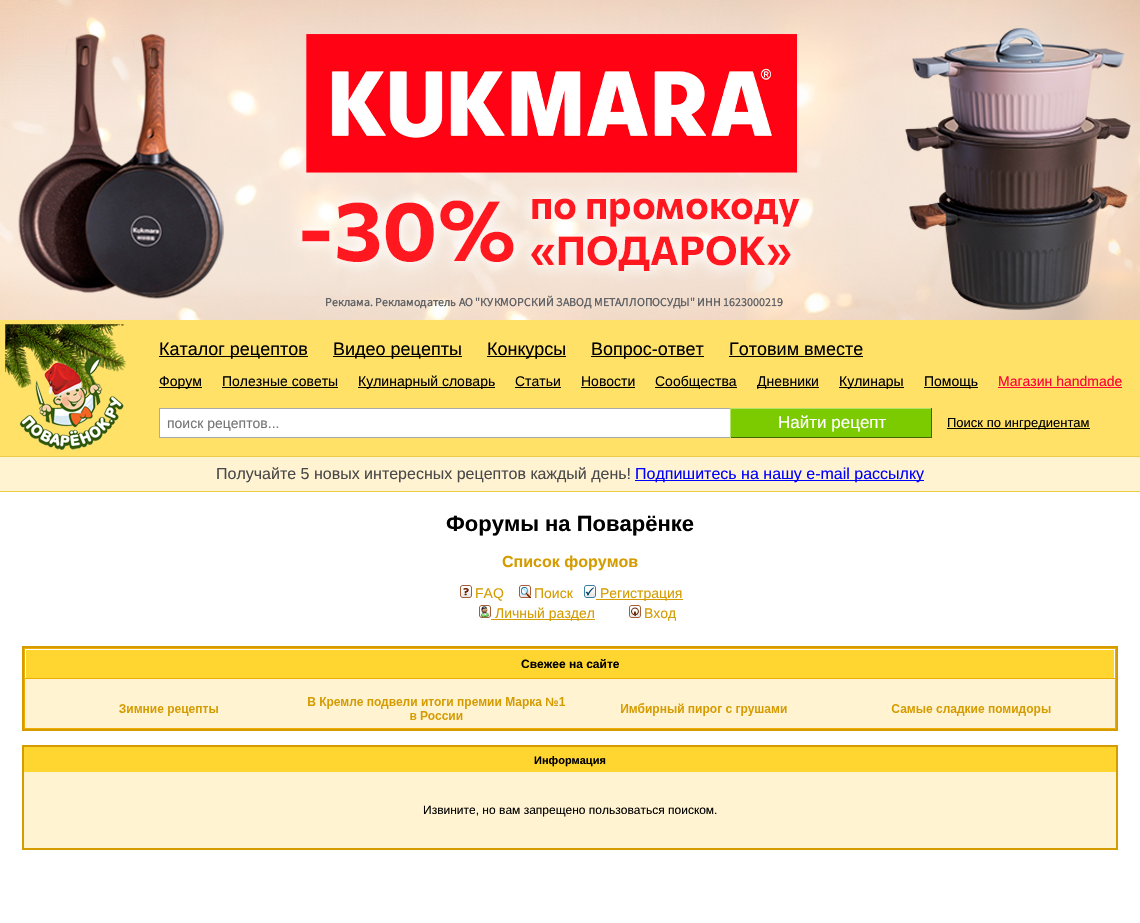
#include "include/core/SkBlurTypes.h"
#include "include/core/SkCanvas.h"
#include "include/core/SkData.h"
#include "include/core/SkFont.h"
#include "include/core/SkFontMgr.h"
#include "include/core/SkImage.h"
#include "include/core/SkMaskFilter.h"
#include "include/core/SkPaint.h"
#include "include/core/SkPathBuilder.h"
#include "include/core/SkTextBlob.h"
#include "include/effects/SkDashPathEffect.h"
#include "include/effects/SkGradientShader.h"
#include "include/utils/SkParsePath.h"

extern sk_sp<SkFontMgr> fontMgr;

void draw(SkCanvas* canvas) {
  SkPaint p;
  p.setAntiAlias(true);
  canvas->clear(SK_ColorWHITE);
  canvas->drawImageRect(SkImages::DeferredFromEncodedData(SkData::MakeFromFileName("images/1.png")), SkRect::MakeLTRB(0, 0, 1140, 320), SkSamplingOptions());
  p.setColor(SkColorSetRGB(255, 225, 104));
  canvas->drawRect(SkRect::MakeLTRB(0, 320, 1140, 456), p);
  canvas->drawImageRect(SkImages::DeferredFromEncodedData(SkData::MakeFromFileName("images/2.png")), SkRect::MakeLTRB(5, 324, 126, 450), SkSamplingOptions());
  p.setColor(SK_ColorBLACK);
  canvas->drawRect(SkRect::MakeLTRB(159, 356, 308, 357), p);
  canvas->drawRect(SkRect::MakeLTRB(333, 356, 462, 357), p);
  canvas->drawRect(SkRect::MakeLTRB(487, 356, 566, 357), p);
  canvas->drawRect(SkRect::MakeLTRB(591, 356, 704, 357), p);
  canvas->drawRect(SkRect::MakeLTRB(729, 356, 863, 357), p);
  canvas->drawRect(SkRect::MakeLTRB(159, 387, 202, 388), p);
  canvas->drawRect(SkRect::MakeLTRB(222, 387, 338, 388), p);
  canvas->drawRect(SkRect::MakeLTRB(358, 387, 495, 388), p);
  canvas->drawRect(SkRect::MakeLTRB(515, 387, 561, 388), p);
  canvas->drawRect(SkRect::MakeLTRB(581, 387, 635, 388), p);
  canvas->drawRect(SkRect::MakeLTRB(655, 387, 737, 388), p);
  canvas->drawRect(SkRect::MakeLTRB(757, 387, 819, 388), p);
  canvas->drawRect(SkRect::MakeLTRB(839, 387, 904, 388), p);
  canvas->drawRect(SkRect::MakeLTRB(924, 387, 978, 388), p);
  p.setColor(SkColorSetRGB(255, 0, 54));
  canvas->drawRect(SkRect::MakeLTRB(998, 387, 1122, 388), p);
  p.setColor(SK_ColorWHITE);
  canvas->drawRect(SkRect::MakeLTRB(160, 409, 730, 437), p);
  p.setColor(SkColorSetRGB(170, 170, 170));
  canvas->drawRect(SkRect::MakeLTRB(159, 408, 730, 409), p);
  canvas->drawRect(SkRect::MakeLTRB(159, 437, 730, 438), p);
  canvas->drawRect(SkRect::MakeLTRB(159, 408, 160, 438), p);
  p.setColor(SkColorSetRGB(124, 203, 0));
  canvas->drawRect(SkRect::MakeLTRB(731, 409, 931, 437), p);
  p.setColor(SkColorSetRGB(179, 225, 108));
  canvas->drawRect(SkRect::MakeLTRB(730, 408, 932, 409), p);
  p.setColor(SkColorSetRGB(68, 101, 0));
  canvas->drawRect(SkRect::MakeLTRB(931, 408, 932, 438), p);
  canvas->drawRect(SkRect::MakeLTRB(730, 437, 932, 438), p);
  p.setColor(SkColorSetRGB(179, 225, 108));
  canvas->drawRect(SkRect::MakeLTRB(730, 408, 731, 438), p);
  p.setColor(SK_ColorBLACK);
  canvas->drawRect(SkRect::MakeLTRB(947, 428, 1090, 429), p);
  p.setColor(SkColorSetRGB(255, 243, 210));
  canvas->drawRect(SkRect::MakeLTRB(0, 457, 1140, 491), p);
  p.setColor(SkColorSetRGB(236, 204, 73));
  canvas->drawRect(SkRect::MakeLTRB(0, 456, 1140, 457), p);
  canvas->drawRect(SkRect::MakeLTRB(0, 491, 1140, 492), p);
  p.setColor(SkColorSetRGB(0, 0, 255));
  canvas->drawRect(SkRect::MakeLTRB(635, 480, 924, 481), p);
  canvas->drawImageRect(SkImages::DeferredFromEncodedData(SkData::MakeFromFileName("images/3.png")), SkRect::MakeLTRB(460, 585, 472, 598), SkSamplingOptions());
  canvas->drawImageRect(SkImages::DeferredFromEncodedData(SkData::MakeFromFileName("images/4.png")), SkRect::MakeLTRB(519, 585, 531, 598), SkSamplingOptions());
  canvas->drawImageRect(SkImages::DeferredFromEncodedData(SkData::MakeFromFileName("images/5.png")), SkRect::MakeLTRB(584, 585, 596, 598), SkSamplingOptions());
  p.setColor(SkColorSetRGB(213, 156, 1));
  canvas->drawRect(SkRect::MakeLTRB(596, 599, 683, 600), p);
  canvas->drawImageRect(SkImages::DeferredFromEncodedData(SkData::MakeFromFileName("images/6.png")), SkRect::MakeLTRB(479, 605, 491, 618), SkSamplingOptions());
  canvas->drawRect(SkRect::MakeLTRB(491, 619, 595, 620), p);
  canvas->drawImageRect(SkImages::DeferredFromEncodedData(SkData::MakeFromFileName("images/7.png")), SkRect::MakeLTRB(629, 605, 641, 618), SkSamplingOptions());
  p.setColor(SkColorSetRGB(237, 173, 1));
  canvas->drawRect(SkRect::MakeLTRB(23, 647, 1117, 730), p);
  p.setStyle(SkPaint::kStroke_Style);
  p.setStrokeWidth(2);
  p.setColor(SkColorSetRGB(213, 156, 1));
  canvas->drawRect(SkRect::MakeLTRB(23, 647, 1117, 730), p);
  p.setStyle(SkPaint::kFill_Style);
  p.setColor(SkColorSetRGB(255, 214, 47));
  canvas->drawRect(SkRect::MakeLTRB(26, 650, 1114, 678), p);
  p.setColor(SK_ColorWHITE);
  canvas->drawRect(SkRect::MakeLTRB(25, 649, 1115, 650), p);
  canvas->drawRect(SkRect::MakeLTRB(1114, 649, 1115, 678), p);
  canvas->drawRect(SkRect::MakeLTRB(25, 649, 26, 678), p);
  p.setColor(SkColorSetRGB(255, 243, 210));
  canvas->drawRect(SkRect::MakeLTRB(25, 679, 1115, 728), p);
  canvas->drawImageRect(SkImages::DeferredFromEncodedData(SkData::MakeFromFileName("images/8.png")), SkRect::MakeLTRB(119, 697, 1051, 720), SkSamplingOptions());
  p.setStyle(SkPaint::kStroke_Style);
  p.setColor(SkColorSetRGB(213, 156, 1));
  canvas->drawRect(SkRect::MakeLTRB(23, 746, 1117, 849), p);
  p.setStyle(SkPaint::kFill_Style);
  p.setColor(SkColorSetRGB(255, 214, 47));
  canvas->drawRect(SkRect::MakeLTRB(24, 747, 1116, 772), p);
  p.setColor(SkColorSetRGB(255, 243, 210));
  canvas->drawRect(SkRect::MakeLTRB(24, 772, 1116, 848), p);
  SkFont font1(fontMgr->matchFamilyStyle("Liberation Sans", SkFontStyle::Normal()), 18);
  font1.setSubpixel(true);
  p.setColor(SK_ColorBLACK);
  canvas->drawString("Каталог рецептов", 159, 355, font1, p);
  canvas->drawString("Видео рецепты", 333, 355, font1, p);
  canvas->drawString("Конкурсы", 487, 355, font1, p);
  canvas->drawString("Вопрос-ответ", 591, 355, font1, p);
  canvas->drawString("Готовим вместе", 729, 355, font1, p);
  SkFont font2(fontMgr->matchFamilyStyle("Liberation Sans", SkFontStyle::Normal()), 14);
  font2.setSubpixel(true);
  canvas->drawString("Форум", 159, 386, font2, p);
  canvas->drawString("Полезные советы", 222, 386, font2, p);
  canvas->drawString("Кулинарный словарь", 358, 386, font2, p);
  canvas->drawString("Статьи", 515, 386, font2, p);
  canvas->drawString("Новости", 581, 386, font2, p);
  canvas->drawString("Сообщества", 655, 386, font2, p);
  canvas->drawString("Дневники", 757, 386, font2, p);
  canvas->drawString("Кулинары", 839, 386, font2, p);
  canvas->drawString("Помощь", 924, 386, font2, p);
  p.setColor(SkColorSetRGB(255, 0, 54));
  canvas->drawString("Магазин handmade", 998, 386, font2, p);
  p.setColor(SkColorSetRGB(117, 117, 117));
  canvas->drawString("поиск рецептов...", 167, 428, font2, p);
  SkFont font3(fontMgr->matchFamilyStyle("Liberation Sans", SkFontStyle::Normal()), 17);
  font3.setSubpixel(true);
  p.setColor(SK_ColorWHITE);
  canvas->drawString("Найти рецепт", 778, 428, font3, p);
  SkFont font4(fontMgr->matchFamilyStyle("Liberation Sans", SkFontStyle::Normal()), 13);
  font4.setSubpixel(true);
  p.setColor(SK_ColorBLACK);
  canvas->drawString("Поиск по ингредиентам", 947, 427, font4, p);
  SkFont font5(fontMgr->matchFamilyStyle("Liberation Sans", SkFontStyle::Normal()), 16);
  font5.setSubpixel(true);
  p.setColor(SkColorSetRGB(73, 73, 73));
  canvas->drawString("Получайте 5 новых интересных рецептов каждый день!", 216, 479, font5, p);
  p.setColor(SkColorSetRGB(0, 0, 255));
  canvas->drawString("Подпишитесь на нашу e-mail рассылку", 635, 479, font5, p);
  SkFont font6(fontMgr->matchFamilyStyle("Liberation Sans", SkFontStyle::Bold()), 22);
  font6.setSubpixel(true);
  p.setColor(SK_ColorBLACK);
  canvas->drawString("Форумы на Поварёнке", 446, 531, font6, p);
  SkFont font7(fontMgr->matchFamilyStyle("Liberation Sans", SkFontStyle::Bold()), 16);
  font7.setSubpixel(true);
  p.setColor(SkColorSetRGB(213, 156, 1));
  canvas->drawString("Список форумов", 502, 567, font7, p);
  canvas->drawString("FAQ", 475, 598, font2, p);
  canvas->drawString("Поиск", 534, 598, font2, p);
  canvas->drawString("Регистрация", 600, 598, font2, p);
  canvas->drawString("Личный раздел", 495, 618, font2, p);
  canvas->drawString("Вход", 644, 618, font2, p);
  SkFont font8(fontMgr->matchFamilyStyle("Liberation Sans", SkFontStyle::Bold()), 12);
  font8.setSubpixel(true);
  p.setColor(SK_ColorBLACK);
  canvas->drawString("Свежее на сайте", 521, 668, font8, p);
  SkFont font9(fontMgr->matchFamilyStyle("Liberation Sans", SkFontStyle::Bold()), 11);
  font9.setSubpixel(true);
  canvas->drawString("Информация", 534, 764, font9, p);
  SkFont font10(fontMgr->matchFamilyStyle("Liberation Sans", SkFontStyle::Normal()), 12);
  font10.setSubpixel(true);
  canvas->drawString("Извините, но вам запрещено пользоваться поиском.", 423, 814, font10, p);
}
